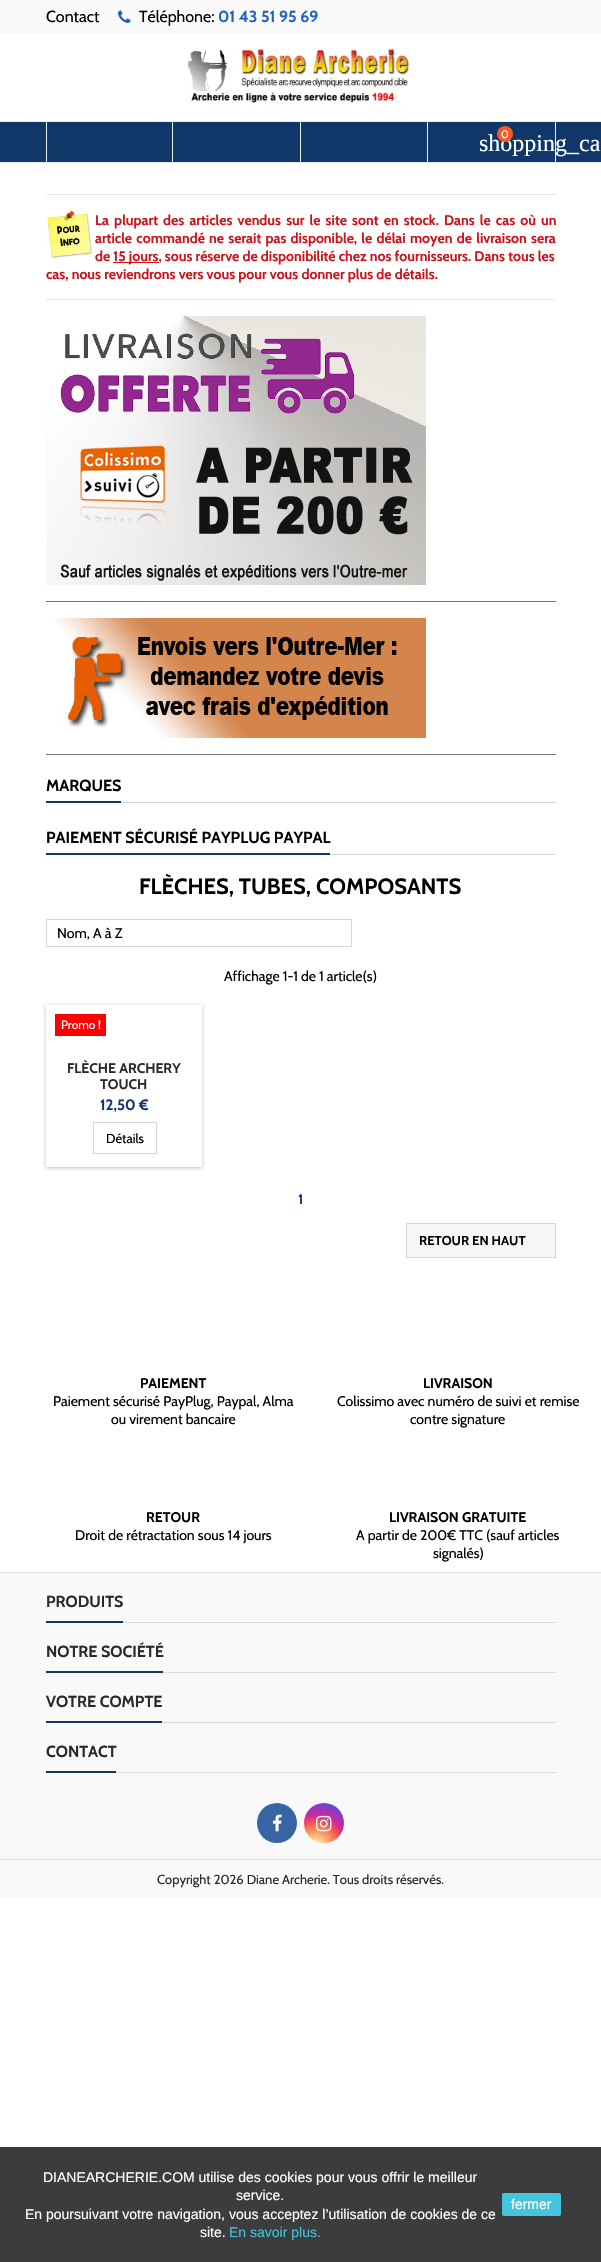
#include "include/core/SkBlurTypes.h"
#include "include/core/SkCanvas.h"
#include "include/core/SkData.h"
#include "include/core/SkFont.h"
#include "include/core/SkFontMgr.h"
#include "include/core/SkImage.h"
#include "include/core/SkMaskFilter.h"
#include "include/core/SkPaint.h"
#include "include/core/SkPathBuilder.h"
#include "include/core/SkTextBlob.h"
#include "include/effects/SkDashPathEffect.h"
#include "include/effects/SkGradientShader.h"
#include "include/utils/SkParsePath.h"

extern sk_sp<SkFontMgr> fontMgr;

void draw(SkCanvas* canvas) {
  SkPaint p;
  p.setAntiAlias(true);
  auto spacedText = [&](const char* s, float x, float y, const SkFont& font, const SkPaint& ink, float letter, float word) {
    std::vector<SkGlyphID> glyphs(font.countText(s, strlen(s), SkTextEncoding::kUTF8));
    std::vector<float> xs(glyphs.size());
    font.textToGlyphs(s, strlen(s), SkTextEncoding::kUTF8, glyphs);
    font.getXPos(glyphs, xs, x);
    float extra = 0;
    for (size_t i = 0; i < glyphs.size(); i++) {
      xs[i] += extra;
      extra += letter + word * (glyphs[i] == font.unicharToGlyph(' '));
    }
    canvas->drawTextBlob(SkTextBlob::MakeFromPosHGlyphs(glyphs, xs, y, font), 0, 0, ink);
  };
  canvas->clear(SK_ColorWHITE);
  p.setColor(SkColorSetRGB(249, 249, 249));
  canvas->drawRect(SkRect::MakeLTRB(0, 0, 601, 34), p);
  canvas->drawImageRect(SkImages::DeferredFromEncodedData(SkData::MakeFromFileName("images/1.png")), SkRect::MakeLTRB(118, 10, 131, 23), SkSamplingOptions());
  canvas->drawImageRect(SkImages::DeferredFromEncodedData(SkData::MakeFromFileName("images/2.png")), SkRect::MakeLTRB(187, 48, 410, 105), SkSamplingOptions());
  p.setColor(SkColorSetRGB(17, 55, 105));
  canvas->drawRect(SkRect::MakeLTRB(0, 122, 601, 162), p);
  p.setColor(SkColorSetRGB(230, 239, 242));
  canvas->drawRect(SkRect::MakeLTRB(0, 121, 601, 122), p);
  canvas->drawRect(SkRect::MakeLTRB(0, 162, 601, 163), p);
  canvas->drawRect(SkRect::MakeLTRB(172, 122, 173, 162), p);
  canvas->drawRect(SkRect::MakeLTRB(46, 122, 47, 162), p);
  canvas->drawRect(SkRect::MakeLTRB(300, 122, 301, 162), p);
  canvas->drawRect(SkRect::MakeLTRB(427, 122, 428, 162), p);
  canvas->drawRect(SkRect::MakeLTRB(555, 122, 556, 162), p);
  p.setColor(SkColorSetRGB(230, 230, 230));
  canvas->drawRect(SkRect::MakeLTRB(46, 194, 556, 195), p);
  canvas->drawImageRect(SkImages::DeferredFromEncodedData(SkData::MakeFromFileName("images/3.png")), SkRect::MakeLTRB(46, 211, 92, 258), SkSamplingOptions());
  p.setColor(SkColorSetRGB(208, 18, 26));
  canvas->drawRect(SkRect::MakeLTRB(113, 262, 159, 263), p);
  p.setColor(SkColorSetRGB(230, 230, 230));
  canvas->drawRect(SkRect::MakeLTRB(46, 299, 556, 300), p);
  canvas->drawImageRect(SkImages::DeferredFromEncodedData(SkData::MakeFromFileName("images/4.png")), SkRect::MakeLTRB(46, 316, 426, 585), SkSamplingOptions());
  p.setColor(SkColorSetRGB(115, 115, 115));
  canvas->drawRect(SkRect::MakeLTRB(46, 601, 556, 602), p);
  canvas->drawImageRect(SkImages::DeferredFromEncodedData(SkData::MakeFromFileName("images/5.png")), SkRect::MakeLTRB(54, 618, 426, 738), SkSamplingOptions());
  canvas->drawRect(SkRect::MakeLTRB(46, 754, 556, 755), p);
  p.setColor(SkColorSetRGB(214, 212, 212));
  canvas->drawRect(SkRect::MakeLTRB(121, 802, 556, 803), p);
  p.setColor(SkColorSetRGB(17, 55, 105));
  canvas->drawRect(SkRect::MakeLTRB(46, 801, 121, 803), p);
  p.setColor(SkColorSetRGB(214, 212, 212));
  canvas->drawRect(SkRect::MakeLTRB(330, 854, 556, 855), p);
  p.setColor(SkColorSetRGB(17, 55, 105));
  canvas->drawRect(SkRect::MakeLTRB(46, 853, 330, 855), p);
  p.setStyle(SkPaint::kStroke_Style);
  p.setStrokeWidth(1);
  p.setColor(SkColorSetRGB(214, 212, 212));
  canvas->drawRect(SkRect::MakeLTRB(46.5f, 919.5f, 351.5f, 946.5f), p);
  canvas->save();
  canvas->clipPath(SkPathBuilder(SkPathFillType::kEvenOdd).moveTo(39, 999).lineTo(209, 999).lineTo(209, 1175).lineTo(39, 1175).close().moveTo(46, 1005).lineTo(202, 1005).lineTo(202, 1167).lineTo(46, 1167).close().detach(), true);
  p.setStyle(SkPaint::kFill_Style);
  p.setColor(SkColorSetARGB(61, 0, 0, 0));
  p.setMaskFilter(SkMaskFilter::MakeBlur(kNormal_SkBlurStyle, 2));
  canvas->drawRect(SkRect::MakeLTRB(46, 1006, 202, 1168), p);
  p.setMaskFilter(nullptr);
  canvas->restore();
  p.setColor(SkColorSetRGB(255, 0, 0));
  canvas->drawRect(SkRect::MakeLTRB(55, 1014, 106, 1036), p);
  p.setStyle(SkPaint::kStroke_Style);
  p.setColor(SkColorSetRGB(214, 212, 212));
  canvas->drawRect(SkRect::MakeLTRB(93.5f, 1122.5f, 156.5f, 1153.5f), p);
  p.setStyle(SkPaint::kFill_Style);
  p.setColor(SkColorSetRGB(246, 246, 246));
  canvas->drawRect(SkRect::MakeLTRB(406.5f, 1223.5f, 555.5f, 1257.5f), p);
  p.setStyle(SkPaint::kStroke_Style);
  p.setColor(SkColorSetRGB(216, 216, 216));
  canvas->drawRect(SkRect::MakeLTRB(406.5f, 1223.5f, 555.5f, 1257.5f), p);
  p.setStyle(SkPaint::kFill_Style);
  p.setColor(SkColorSetRGB(249, 249, 249));
  canvas->drawRect(SkRect::MakeLTRB(0, 1573, 601, 1859), p);
  p.setColor(SkColorSetRGB(218, 218, 218));
  canvas->drawRect(SkRect::MakeLTRB(0, 1572, 601, 1573), p);
  canvas->drawRect(SkRect::MakeLTRB(123, 1622, 556, 1623), p);
  p.setColor(SkColorSetRGB(17, 55, 105));
  canvas->drawRect(SkRect::MakeLTRB(46, 1621, 123, 1623), p);
  p.setColor(SkColorSetRGB(218, 218, 218));
  canvas->drawRect(SkRect::MakeLTRB(163, 1672, 556, 1673), p);
  p.setColor(SkColorSetRGB(17, 55, 105));
  canvas->drawRect(SkRect::MakeLTRB(46, 1671, 163, 1673), p);
  p.setColor(SkColorSetRGB(218, 218, 218));
  canvas->drawRect(SkRect::MakeLTRB(162, 1722, 556, 1723), p);
  p.setColor(SkColorSetRGB(17, 55, 105));
  canvas->drawRect(SkRect::MakeLTRB(46, 1721, 162, 1723), p);
  p.setColor(SkColorSetRGB(218, 218, 218));
  canvas->drawRect(SkRect::MakeLTRB(116, 1772, 556, 1773), p);
  p.setColor(SkColorSetRGB(17, 55, 105));
  canvas->drawRect(SkRect::MakeLTRB(46, 1771, 116, 1773), p);
  p.setColor(SkColorSetRGB(58, 60, 62));
  canvas->drawRect(SkRect::MakeLTRB(0, 2147, 601, 2262), p);
  p.setColor(SkColorSetRGB(70, 196, 221));
  canvas->drawRoundRect(SkRect::MakeLTRB(502, 2193, 561, 2216), 2, 2, p);
  p.setColor(SkColorSetRGB(55, 101, 163));
  canvas->drawCircle(277, 1823, 20, p);
  canvas->drawImageRect(SkImages::DeferredFromEncodedData(SkData::MakeFromFileName("images/6.png")), SkRect::MakeLTRB(272, 1814, 282, 1832), SkSamplingOptions());
  {
    const SkColor colors[] = {SkColorSetRGB(253, 244, 151), SkColorSetRGB(253, 244, 151), SkColorSetRGB(253, 89, 73), SkColorSetRGB(214, 36, 159), SkColorSetRGB(40, 90, 235)};
    const float stops[] = {0, 0.05f, 0.45f, 0.6f, 1};
    p.setShader(SkGradientShader::MakeRadial({316, 1846}, 51, colors, stops, 5, SkTileMode::kClamp));
    p.setAlpha(255);
  }
  canvas->drawCircle(324, 1823, 20, p);
  canvas->drawImageRect(SkImages::DeferredFromEncodedData(SkData::MakeFromFileName("images/7.png")), SkRect::MakeLTRB(316, 1815, 332, 1832), SkSamplingOptions());
  p.setShader(nullptr);
  p.setColor(SkColorSetRGB(249, 249, 249));
  canvas->drawRect(SkRect::MakeLTRB(0, 1860, 601, 1898), p);
  p.setColor(SkColorSetRGB(218, 218, 218));
  canvas->drawRect(SkRect::MakeLTRB(0, 1859, 601, 1860), p);
  SkFont font1(fontMgr->matchFamilyStyle("Cabin", SkFontStyle::Normal()), 16);
  font1.setSubpixel(true);
  p.setColor(SK_ColorBLACK);
  canvas->drawString("Contact", 46, 22, font1, p);
  canvas->drawString("Téléphone:", 139, 22, font1, p);
  SkFont font2(fontMgr->matchFamilyStyle("Cabin", SkFontStyle::Bold()), 16);
  font2.setSubpixel(true);
  p.setColor(SkColorSetRGB(33, 99, 185));
  canvas->drawString("01 43 51 95 69", 218, 22, font2, p);
  SkFont font3(fontMgr->matchFamilyStyle("Liberation Serif", SkFontStyle::Normal()), 24);
  font3.setSubpixel(true);
  p.setColor(SK_ColorWHITE);
  canvas->drawString("shopping_ca", 479, 151, font3, p);
  p.setColor(SkColorSetRGB(255, 87, 34));
  canvas->drawCircle(505, 134, 8, p);
  SkFont font4(fontMgr->matchFamilyStyle("Cabin", SkFontStyle::Normal()), 11);
  font4.setSubpixel(true);
  p.setColor(SK_ColorWHITE);
  canvas->drawString("0", 501, 138, font4, p);
  SkFont font5(fontMgr->matchFamilyStyle("Cabin", SkFontStyle::Bold()), 14);
  font5.setSubpixel(true);
  p.setColor(SkColorSetRGB(208, 18, 26));
  spacedText("La plupart des articles vendus sur le site sont en stock. Dans le cas où un", 95, 225, font5, p, 0, 2);
  spacedText("article commandé ne serait pas disponible, le délai moyen de livraison sera", 95, 243, font5, p, 0, 1.1f);
  canvas->drawString("de", 95, 261, font5, p);
  canvas->drawString("15 jours, sous réserve de disponibilité chez nos fournisseurs. Dans tous les", 113, 261, font5, p);
  canvas->drawString("cas, nous reviendrons vers vous pour vous donner plus de détails.", 46, 279, font5, p);
  p.setColor(SK_ColorBLACK);
  canvas->drawString("MARQUES", 46, 791, font2, p);
  canvas->drawString("PAIEMENT SÉCURISÉ PAYPLUG PAYPAL", 46, 843, font2, p);
  SkFont font6(fontMgr->matchFamilyStyle("Cabin", SkFontStyle::Bold()), 22);
  font6.setSubpixel(true);
  canvas->drawString("FLÈCHES, TUBES, COMPOSANTS", 139, 894, font6, p);
  SkFont font7(fontMgr->matchFamilyStyle("Cabin", SkFontStyle::Normal()), 14);
  font7.setSubpixel(true);
  canvas->drawString("Nom, A à Z", 57, 938, font7, p);
  canvas->drawString("Affichage 1-1 de 1 article(s)", 224, 981, font7, p);
  SkFont font8(fontMgr->matchFamilyStyle("Cabin", SkFontStyle::Normal()), 12);
  font8.setSubpixel(true);
  p.setColor(SK_ColorWHITE);
  canvas->drawString("Promo !", 61, 1029, font8, p);
  p.setColor(SkColorSetRGB(41, 41, 41));
  canvas->drawString("FLÈCHE ARCHERY", 67, 1073, font5, p);
  canvas->drawString("TOUCH", 100, 1089, font5, p);
  SkFont font9(fontMgr->matchFamilyStyle("Cabin", SkFontStyle::Bold()), 15);
  font9.setSubpixel(true);
  p.setColor(SkColorSetRGB(17, 55, 105));
  canvas->drawString("12,50 €", 100, 1110, font9, p);
  SkFont font10(fontMgr->matchFamilyStyle("Cabin", SkFontStyle::Normal()), 13);
  font10.setSubpixel(true);
  p.setColor(SK_ColorBLACK);
  canvas->drawString("Détails", 106, 1143, font10, p);
  p.setColor(SkColorSetRGB(17, 55, 105));
  canvas->drawString("1", 298, 1204, font5, p);
  SkFont font11(fontMgr->matchFamilyStyle("Cabin", SkFontStyle::Bold()), 13);
  font11.setSubpixel(true);
  p.setColor(SK_ColorBLACK);
  canvas->drawString("RETOUR EN HAUT", 419, 1245, font11, p);
  canvas->drawString("PAIEMENT", 140, 1388, font5, p);
  canvas->drawString("Paiement sécurisé PayPlug, Paypal, Alma", 53, 1406, font7, p);
  canvas->drawString("ou virement bancaire", 111, 1424, font7, p);
  canvas->drawString("LIVRAISON", 423, 1388, font5, p);
  canvas->drawString("Colissimo avec numéro de suivi et remise", 337, 1406, font7, p);
  canvas->drawString("contre signature", 410, 1424, font7, p);
  canvas->drawString("RETOUR", 146, 1522, font5, p);
  canvas->drawString("Droit de rétractation sous 14 jours", 75, 1540, font7, p);
  canvas->drawString("LIVRAISON GRATUITE", 389, 1522, font5, p);
  canvas->drawString("A partir de 200€ TTC (sauf articles", 356, 1540, font7, p);
  canvas->drawString("signalés)", 433, 1558, font7, p);
  p.setColor(SkColorSetRGB(41, 41, 41));
  canvas->drawString("PRODUITS", 46, 1607, font2, p);
  canvas->drawString("NOTRE SOCIÉTÉ", 46, 1657, font2, p);
  canvas->drawString("VOTRE COMPTE", 46, 1707, font2, p);
  canvas->drawString("CONTACT", 46, 1757, font2, p);
  SkFont font12(fontMgr->matchFamilyStyle("Liberation Sans", SkFontStyle::Normal()), 14);
  font12.setSubpixel(true);
  p.setColor(SK_ColorWHITE);
  canvas->drawString("DIANEARCHERIE.COM utilise des cookies pour vous offrir le meilleur", 43, 2182, font12, p);
  canvas->drawString("service.", 236, 2200, font12, p);
  canvas->drawString("En poursuivant votre navigation, vous acceptez l’utilisation de cookies de ce", 25, 2219, font12, p);
  canvas->drawString("site.", 200, 2237, font12, p);
  p.setColor(SkColorSetRGB(70, 196, 221));
  canvas->drawString("En savoir plus.", 229, 2237, font12, p);
  p.setColor(SK_ColorWHITE);
  canvas->drawString("fermer", 511, 2209, font12, p);
  p.setColor(SkColorSetRGB(41, 41, 41));
  canvas->drawString("Copyright 2026 Diane Archerie. Tous droits réservés.", 157, 1884, font10, p);
}
